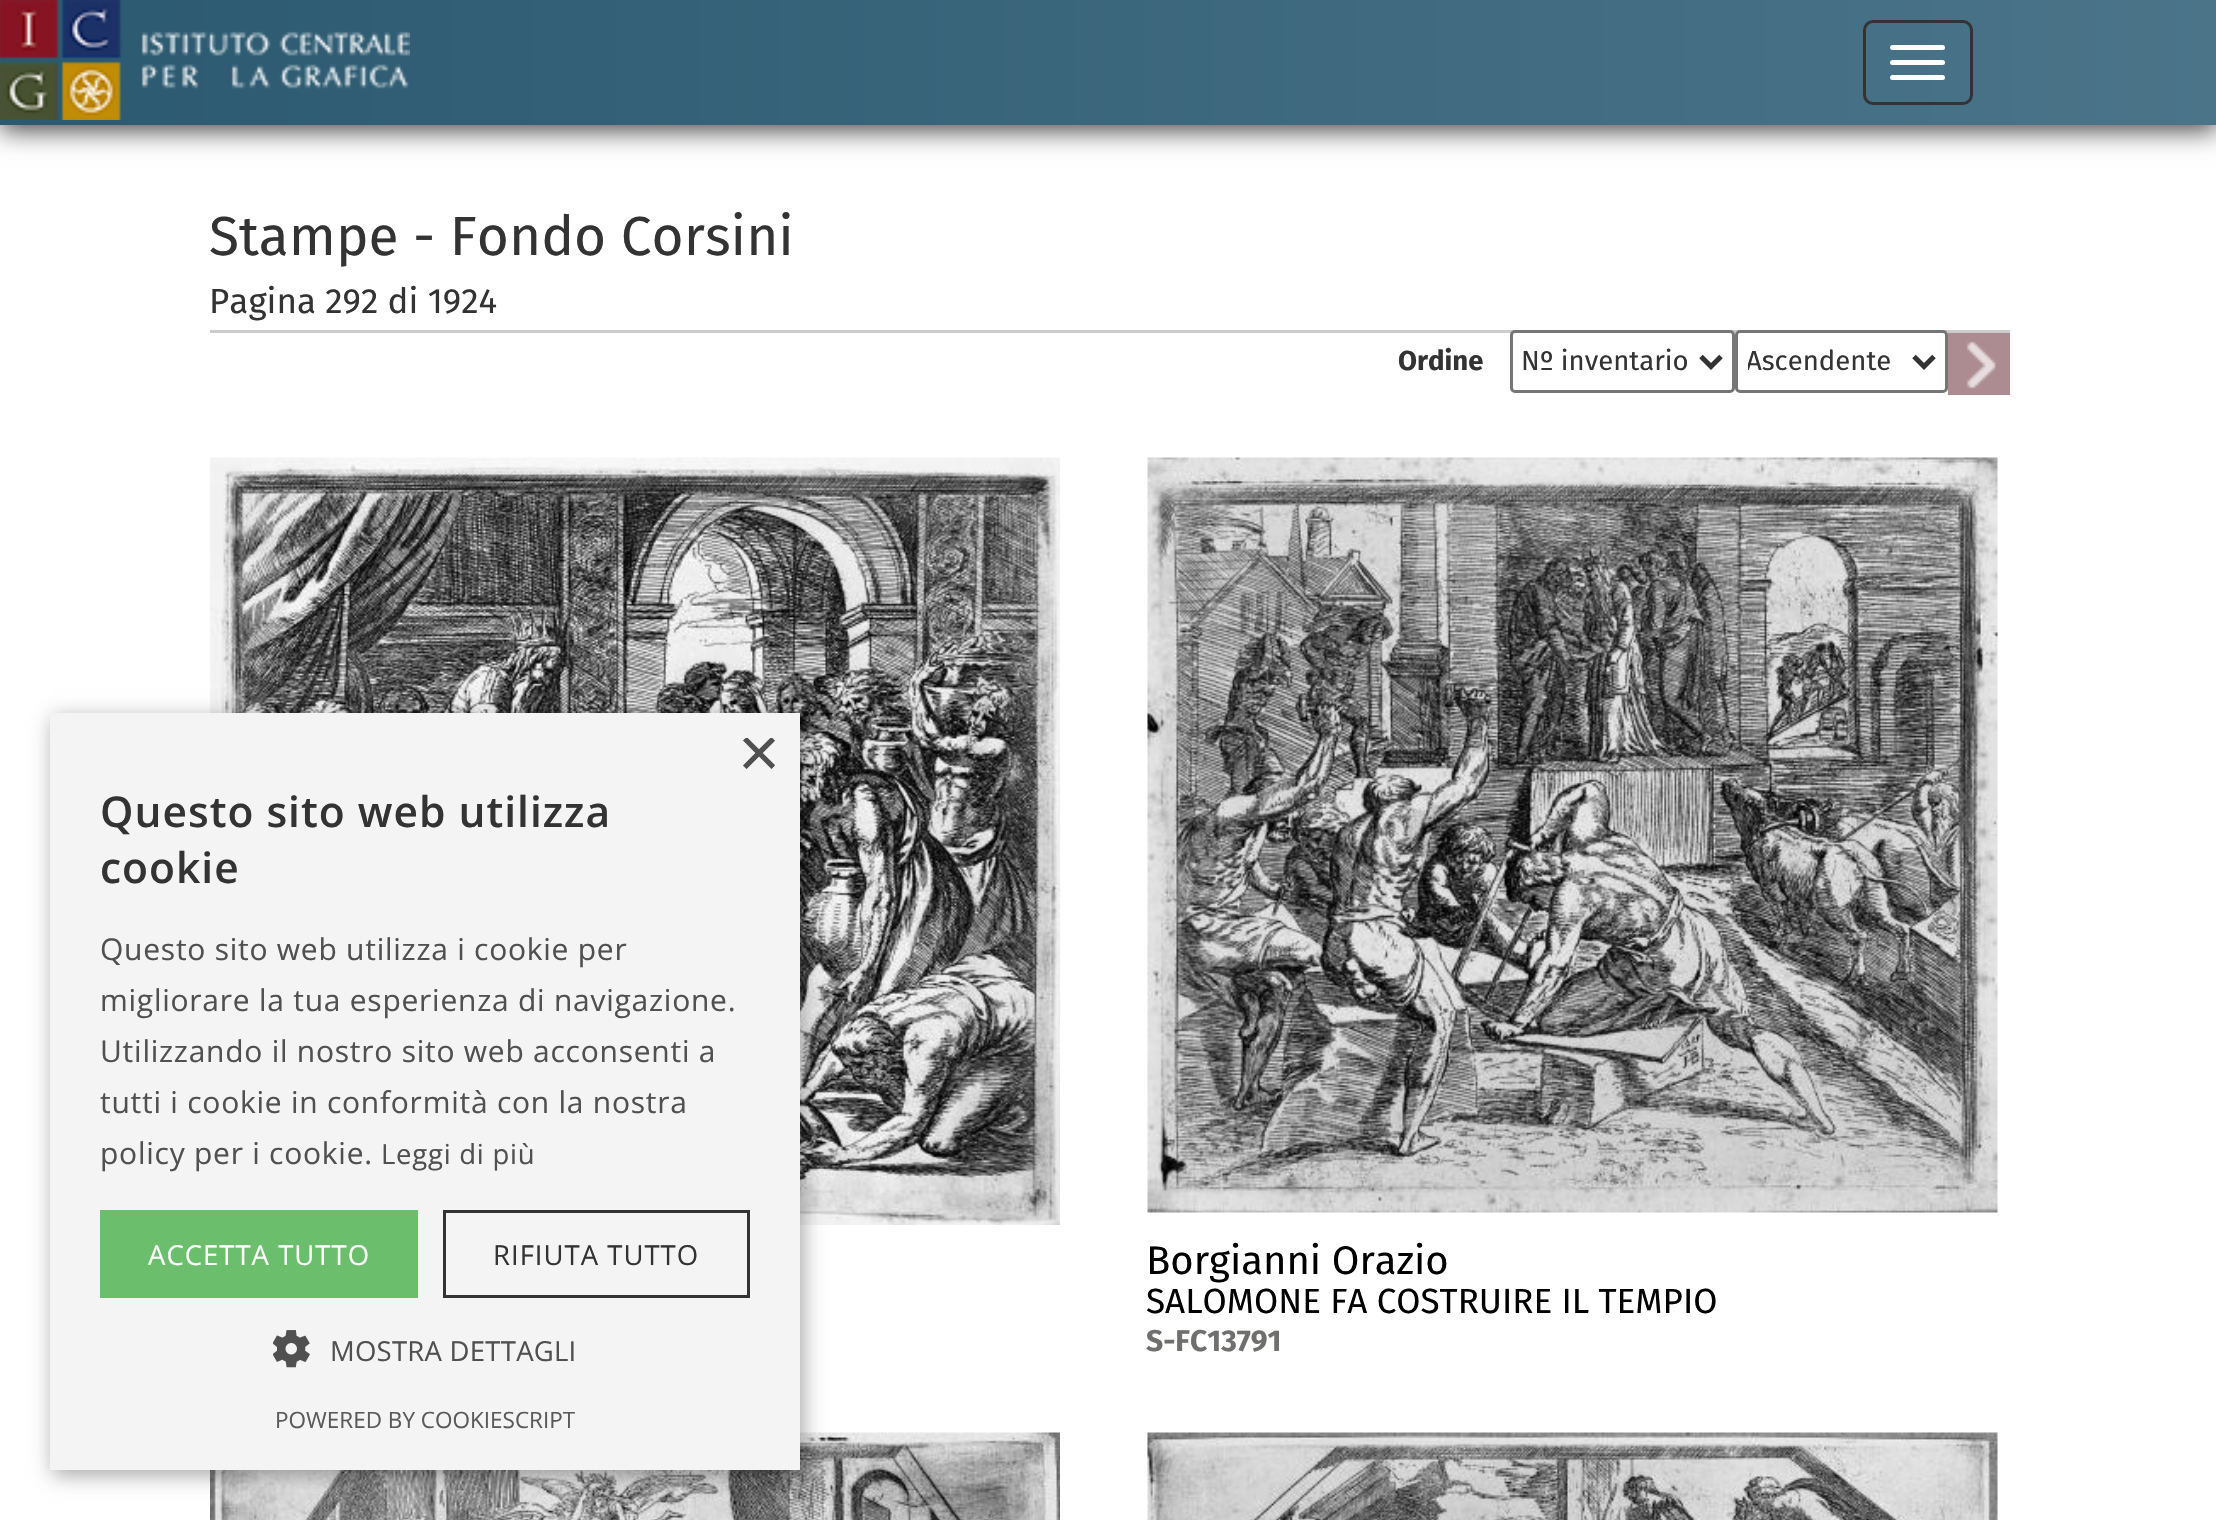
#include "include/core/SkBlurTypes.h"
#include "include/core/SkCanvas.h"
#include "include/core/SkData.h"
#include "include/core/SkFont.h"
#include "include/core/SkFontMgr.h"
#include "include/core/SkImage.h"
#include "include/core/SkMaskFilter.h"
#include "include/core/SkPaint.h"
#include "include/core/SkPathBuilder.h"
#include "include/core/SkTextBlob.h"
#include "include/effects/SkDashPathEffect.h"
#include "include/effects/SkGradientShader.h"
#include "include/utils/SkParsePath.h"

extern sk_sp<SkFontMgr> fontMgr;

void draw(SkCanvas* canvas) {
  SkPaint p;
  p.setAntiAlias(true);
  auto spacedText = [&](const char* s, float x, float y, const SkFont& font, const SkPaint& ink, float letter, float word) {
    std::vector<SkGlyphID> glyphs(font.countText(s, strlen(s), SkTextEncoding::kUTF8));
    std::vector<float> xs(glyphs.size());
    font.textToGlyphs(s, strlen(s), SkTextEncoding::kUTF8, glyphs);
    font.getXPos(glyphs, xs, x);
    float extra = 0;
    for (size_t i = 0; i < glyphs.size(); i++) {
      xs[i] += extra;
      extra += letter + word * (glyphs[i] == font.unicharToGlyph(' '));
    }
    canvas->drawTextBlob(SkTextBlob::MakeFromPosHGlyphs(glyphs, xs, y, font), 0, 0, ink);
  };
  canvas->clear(SK_ColorWHITE);
  p.setColor(SkColorSetARGB(191, 0, 0, 0));
  p.setMaskFilter(SkMaskFilter::MakeBlur(kNormal_SkBlurStyle, 12.5f));
  canvas->drawRect(SkRect::MakeLTRB(0, 5, 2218, 130), p);
  p.setMaskFilter(nullptr);
  {
    const SkColor colors[] = {SkColorSetRGB(43, 89, 112), SkColorSetRGB(75, 116, 137)};
    const float stops[] = {0, 1};
    const SkPoint ends[] = {{0, 63}, {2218, 62}};
    p.setShader(SkGradientShader::MakeLinear(ends, colors, stops, 2, SkTileMode::kClamp));
    p.setAlpha(255);
  }
  canvas->drawRect(SkRect::MakeLTRB(0, 0, 2216, 125), p);
  p.setStyle(SkPaint::kStroke_Style);
  p.setStrokeWidth(3);
  p.setShader(nullptr);
  p.setColor(SkColorSetRGB(51, 51, 51));
  canvas->drawRoundRect(SkRect::MakeLTRB(1864.5f, 21.5f, 1971.5f, 103.5f), 8.5f, 8.5f, p);
  p.setStyle(SkPaint::kFill_Style);
  p.setColor(SK_ColorWHITE);
  canvas->drawRoundRect(SkRect::MakeLTRB(1890, 45, 1945, 50), 2.5f, 2.5f, p);
  canvas->drawRoundRect(SkRect::MakeLTRB(1890, 60, 1945, 65), 2.5f, 2.5f, p);
  canvas->drawRoundRect(SkRect::MakeLTRB(1890, 75, 1945, 80), 2.5f, 2.5f, p);
  canvas->drawImageRect(SkImages::DeferredFromEncodedData(SkData::MakeFromFileName("images/1.png")), SkRect::MakeLTRB(0, 0, 410, 120), SkSamplingOptions());
  p.setColor(SkColorSetRGB(204, 204, 204));
  canvas->drawRect(SkRect::MakeLTRB(210, 330, 2010, 333), p);
  p.setColor(SK_ColorWHITE);
  canvas->drawRoundRect(SkRect::MakeLTRB(1511.5f, 331.5f, 1733.5f, 391.5f), 3.5f, 3.5f, p);
  p.setStyle(SkPaint::kStroke_Style);
  p.setColor(SkColorSetRGB(118, 118, 118));
  canvas->drawRoundRect(SkRect::MakeLTRB(1511.5f, 331.5f, 1733.5f, 391.5f), 3.5f, 3.5f, p);
  p.setStrokeWidth(5);
  p.setColor(SkColorSetRGB(51, 51, 51));
  canvas->drawPath(SkPathBuilder().moveTo(1701, 356.5f).lineTo(1711, 366.5f).lineTo(1721, 356.5f).detach(), p);
  p.setStyle(SkPaint::kFill_Style);
  p.setColor(SK_ColorWHITE);
  canvas->drawRoundRect(SkRect::MakeLTRB(1736.5f, 331.5f, 1946.5f, 391.5f), 3.5f, 3.5f, p);
  p.setStyle(SkPaint::kStroke_Style);
  p.setStrokeWidth(3);
  p.setColor(SkColorSetRGB(118, 118, 118));
  canvas->drawRoundRect(SkRect::MakeLTRB(1736.5f, 331.5f, 1946.5f, 391.5f), 3.5f, 3.5f, p);
  p.setStrokeWidth(5);
  p.setColor(SkColorSetRGB(51, 51, 51));
  canvas->drawPath(SkPathBuilder().moveTo(1914, 356.5f).lineTo(1924, 366.5f).lineTo(1934, 356.5f).detach(), p);
  p.setStyle(SkPaint::kFill_Style);
  p.setColor(SkColorSetRGB(172, 140, 144));
  canvas->drawRect(SkRect::MakeLTRB(1948, 333, 2010, 395), p);
  canvas->drawImageRect(SkImages::DeferredFromEncodedData(SkData::MakeFromFileName("images/2.png")), SkRect::MakeLTRB(1966, 341, 1996, 389), SkSamplingOptions());
  canvas->drawImageRect(SkImages::DeferredFromEncodedData(SkData::MakeFromFileName("images/3.png")), SkRect::MakeLTRB(210, 457, 1060, 1225), SkSamplingOptions());
  canvas->drawImageRect(SkImages::DeferredFromEncodedData(SkData::MakeFromFileName("images/4.png")), SkRect::MakeLTRB(1147, 457, 1998, 1213), SkSamplingOptions());
  canvas->drawImageRect(SkImages::DeferredFromEncodedData(SkData::MakeFromFileName("images/5.png")), SkRect::MakeLTRB(210, 1432, 1060, 1520), SkSamplingOptions());
  canvas->drawImageRect(SkImages::DeferredFromEncodedData(SkData::MakeFromFileName("images/6.png")), SkRect::MakeLTRB(1147, 1432, 1998, 1520), SkSamplingOptions());
  p.setColor(SkColorSetARGB(89, 0, 0, 0));
  p.setMaskFilter(SkMaskFilter::MakeBlur(kNormal_SkBlurStyle, 10));
  canvas->drawRect(SkRect::MakeLTRB(53, 718, 803, 1475), p);
  p.setMaskFilter(nullptr);
  p.setColor(SkColorSetRGB(244, 244, 244));
  canvas->drawRect(SkRect::MakeLTRB(50, 713, 800, 1470), p);
  p.setColor(SkColorSetRGB(107, 190, 107));
  canvas->drawRect(SkRect::MakeLTRB(100, 1210, 418, 1298), p);
  p.setStyle(SkPaint::kStroke_Style);
  p.setStrokeWidth(3);
  p.setColor(SkColorSetRGB(51, 51, 51));
  canvas->drawRect(SkRect::MakeLTRB(444.5f, 1211.5f, 748.5f, 1296.5f), p);
  canvas->drawImageRect(SkImages::DeferredFromEncodedData(SkData::MakeFromFileName("images/7.png")), SkRect::MakeLTRB(273, 1330, 310, 1368), SkSamplingOptions());
  SkFont font1(fontMgr->matchFamilyStyle("Fira Sans", SkFontStyle::Normal()), 55);
  font1.setSubpixel(true);
  p.setStyle(SkPaint::kFill_Style);
  canvas->drawString("Stampe - Fondo Corsini", 209, 255, font1, p);
  SkFont font2(fontMgr->matchFamilyStyle("Fira Sans", SkFontStyle::Normal()), 35);
  font2.setSubpixel(true);
  canvas->drawString("Pagina 292 di 1924", 209, 313, font2, p);
  SkFont font3(fontMgr->matchFamilyStyle("Fira Sans", SkFontStyle::Bold()), 27.5f);
  font3.setSubpixel(true);
  canvas->drawString("Ordine", 1398, 370, font3, p);
  SkFont font4(fontMgr->matchFamilyStyle("Fira Sans", SkFontStyle::Normal()), 27.5f);
  font4.setSubpixel(true);
  canvas->drawString("Nº inventario", 1521, 370, font4, p);
  canvas->save();
  canvas->clipRect(SkRect::MakeLTRB(1748, 343, 1905, 380));
  canvas->drawString("Ascendente", 1746, 370, font4, p);
  canvas->restore();
  SkFont font5(fontMgr->matchFamilyStyle("Fira Sans", SkFontStyle::Normal()), 40);
  font5.setSubpixel(true);
  p.setColor(SK_ColorBLACK);
  canvas->drawString("Borgianni Orazio", 1146, 1274, font5, p);
  canvas->drawString("SALOMONE FA COSTRUIRE IL TEMPIO", 1146, 1313, font2, p);
  SkFont font6(fontMgr->matchFamilyStyle("Fira Sans", SkFontStyle::Bold()), 30);
  font6.setSubpixel(true);
  p.setColor(SkColorSetRGB(113, 110, 110));
  canvas->drawString("S-FC13791", 1146, 1351, font6, p);
  canvas->save();
  canvas->clipRect(SkRect::MakeLTRB(738, 738, 775, 775));
  SkFont font7(fontMgr->matchFamilyStyle("Liberation Sans", SkFontStyle::Normal()), 72);
  font7.setSubpixel(true);
  p.setColor(SkColorSetRGB(80, 80, 80));
  canvas->drawString("×", 738, 777, font7, p);
  canvas->restore();
  SkFont font8(fontMgr->matchFamilyStyle("Open Sans", SkFontStyle(600, SkFontStyle::kNormal_Width, SkFontStyle::kUpright_Slant)), 42.5f);
  font8.setSubpixel(true);
  p.setColor(SkColorSetRGB(51, 51, 51));
  spacedText("Questo sito web utilizza", 100, 827, font8, p, 1, 0);
  spacedText("cookie", 100, 883, font8, p, 1, 0);
  SkFont font9(fontMgr->matchFamilyStyle("Open Sans", SkFontStyle::Normal()), 30);
  font9.setSubpixel(true);
  p.setColor(SkColorSetRGB(80, 80, 80));
  spacedText("Questo sito web utilizza i cookie per", 100, 960, font9, p, 0.75f, 0);
  spacedText("migliorare la tua esperienza di navigazione.", 100, 1011, font9, p, 0.75f, 0);
  spacedText("Utilizzando il nostro sito web acconsenti a", 100, 1062, font9, p, 0.75f, 0);
  spacedText("tutti i cookie in conformità con la nostra", 100, 1113, font9, p, 0.75f, 0);
  spacedText("policy per i cookie.", 100, 1164, font9, p, 0.75f, 0);
  SkFont font10(fontMgr->matchFamilyStyle("Open Sans", SkFontStyle::Normal()), 27.5f);
  font10.setSubpixel(true);
  spacedText("Leggi di più", 381, 1164, font10, p, 0.75f, 0);
  p.setColor(SK_ColorWHITE);
  spacedText("ACCETTA TUTTO", 148, 1265, font10, p, 1, 0);
  p.setColor(SkColorSetRGB(51, 51, 51));
  spacedText("RIFIUTA TUTTO", 493, 1265, font10, p, 1, 0);
  p.setColor(SkColorSetRGB(80, 80, 80));
  spacedText("MOSTRA DETTAGLI", 330, 1361, font10, p, 0.25f, 0);
  SkFont font11(fontMgr->matchFamilyStyle("Open Sans", SkFontStyle::Normal()), 22.5f);
  font11.setSubpixel(true);
  p.setColor(SkColorSetRGB(90, 90, 90));
  canvas->drawString("POWERED BY COOKIESCRIPT", 275, 1428, font11, p);
}
